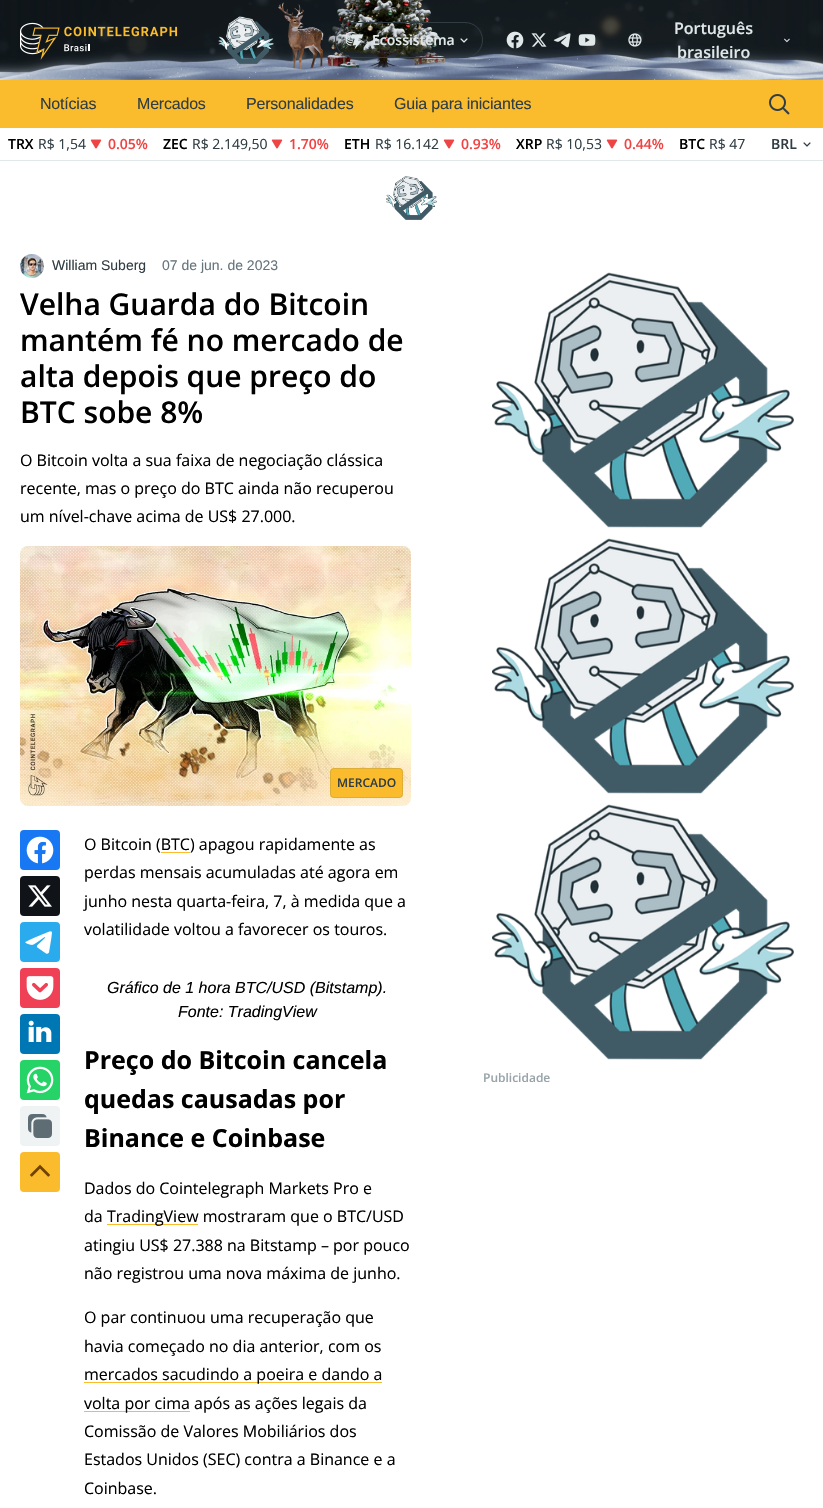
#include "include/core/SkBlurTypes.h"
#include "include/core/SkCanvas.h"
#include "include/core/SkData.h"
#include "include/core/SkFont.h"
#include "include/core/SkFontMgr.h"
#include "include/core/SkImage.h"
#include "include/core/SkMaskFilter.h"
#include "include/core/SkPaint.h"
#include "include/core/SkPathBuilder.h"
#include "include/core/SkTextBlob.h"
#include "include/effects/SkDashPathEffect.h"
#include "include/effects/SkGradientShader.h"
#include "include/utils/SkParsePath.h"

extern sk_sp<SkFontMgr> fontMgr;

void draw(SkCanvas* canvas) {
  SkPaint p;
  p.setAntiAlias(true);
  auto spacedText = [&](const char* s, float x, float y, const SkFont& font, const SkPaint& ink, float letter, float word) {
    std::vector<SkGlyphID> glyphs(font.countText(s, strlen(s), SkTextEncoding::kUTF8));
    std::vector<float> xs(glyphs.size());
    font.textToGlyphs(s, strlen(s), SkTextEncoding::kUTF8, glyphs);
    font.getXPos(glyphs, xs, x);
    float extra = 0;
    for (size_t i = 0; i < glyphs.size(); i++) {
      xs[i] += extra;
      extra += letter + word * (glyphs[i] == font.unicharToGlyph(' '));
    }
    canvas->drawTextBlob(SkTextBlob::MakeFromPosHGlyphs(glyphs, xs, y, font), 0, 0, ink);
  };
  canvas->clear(SK_ColorWHITE);
  p.setColor(SkColorSetRGB(16, 23, 27));
  canvas->drawRect(SkRect::MakeLTRB(0, 0, 823, 73), p);
  canvas->drawImageRect(SkImages::DeferredFromEncodedData(SkData::MakeFromFileName("images/1.png")), SkRect::MakeLTRB(0, 0, 823, 80), SkSamplingOptions());
  canvas->drawImageRect(SkImages::DeferredFromEncodedData(SkData::MakeFromFileName("images/2.png")), SkRect::MakeLTRB(20, 22, 178, 60), SkSamplingOptions());
  canvas->drawImageRect(SkImages::DeferredFromEncodedData(SkData::MakeFromFileName("images/3.png")), SkRect::MakeLTRB(218, 16, 274, 64), SkSamplingOptions());
  p.setStyle(SkPaint::kStroke_Style);
  p.setStrokeWidth(1);
  p.setColor(SkColorSetRGB(48, 61, 67));
  canvas->drawRoundRect(SkRect::MakeLTRB(335.5f, 22.5f, 482.5f, 57.5f), 17.5f, 17.5f, p);
  canvas->drawImageRect(SkImages::DeferredFromEncodedData(SkData::MakeFromFileName("images/4.png")), SkRect::MakeLTRB(345, 31, 364, 50), SkSamplingOptions());
  canvas->drawImageRect(SkImages::DeferredFromEncodedData(SkData::MakeFromFileName("images/5.png")), SkRect::MakeLTRB(460, 38, 468, 43), SkSamplingOptions());
  canvas->drawImageRect(SkImages::DeferredFromEncodedData(SkData::MakeFromFileName("images/6.png")), SkRect::MakeLTRB(506, 31, 524, 49), SkSamplingOptions());
  canvas->drawImageRect(SkImages::DeferredFromEncodedData(SkData::MakeFromFileName("images/7.png")), SkRect::MakeLTRB(531, 33, 547, 47), SkSamplingOptions());
  canvas->drawImageRect(SkImages::DeferredFromEncodedData(SkData::MakeFromFileName("images/8.png")), SkRect::MakeLTRB(553, 33, 571, 48), SkSamplingOptions());
  canvas->drawImageRect(SkImages::DeferredFromEncodedData(SkData::MakeFromFileName("images/9.png")), SkRect::MakeLTRB(578, 34, 596, 46), SkSamplingOptions());
  canvas->drawImageRect(SkImages::DeferredFromEncodedData(SkData::MakeFromFileName("images/10.png")), SkRect::MakeLTRB(628, 33, 642, 47), SkSamplingOptions());
  canvas->drawImageRect(SkImages::DeferredFromEncodedData(SkData::MakeFromFileName("images/11.png")), SkRect::MakeLTRB(784, 38, 790, 43), SkSamplingOptions());
  p.setStyle(SkPaint::kFill_Style);
  p.setColor(SkColorSetRGB(250, 188, 44));
  canvas->drawRect(SkRect::MakeLTRB(0, 80, 823, 128), p);
  canvas->drawImageRect(SkImages::DeferredFromEncodedData(SkData::MakeFromFileName("images/12.png")), SkRect::MakeLTRB(769, 94, 790, 115), SkSamplingOptions());
  p.setColor(SkColorSetRGB(225, 232, 234));
  canvas->drawRect(SkRect::MakeLTRB(0, 160, 823, 161), p);
  canvas->drawImageRect(SkImages::DeferredFromEncodedData(SkData::MakeFromFileName("images/13.png")), SkRect::MakeLTRB(90, 139, 102, 149), SkSamplingOptions());
  canvas->drawImageRect(SkImages::DeferredFromEncodedData(SkData::MakeFromFileName("images/13.png")), SkRect::MakeLTRB(271, 139, 283, 149), SkSamplingOptions());
  canvas->drawImageRect(SkImages::DeferredFromEncodedData(SkData::MakeFromFileName("images/13.png")), SkRect::MakeLTRB(443, 139, 455, 149), SkSamplingOptions());
  canvas->drawImageRect(SkImages::DeferredFromEncodedData(SkData::MakeFromFileName("images/13.png")), SkRect::MakeLTRB(606, 139, 618, 149), SkSamplingOptions());
  canvas->drawImageRect(SkImages::DeferredFromEncodedData(SkData::MakeFromFileName("images/14.png")), SkRect::MakeLTRB(803, 142, 811, 147), SkSamplingOptions());
  canvas->drawImageRect(SkImages::DeferredFromEncodedData(SkData::MakeFromFileName("images/15.png")), SkRect::MakeLTRB(386, 176, 437, 220), SkSamplingOptions());
  canvas->drawImageRect(SkImages::DeferredFromEncodedData(SkData::MakeFromFileName("images/16.png")), SkRect::MakeLTRB(20, 254, 44, 278), SkSamplingOptions());
  canvas->drawImageRect(SkImages::DeferredFromEncodedData(SkData::MakeFromFileName("images/17.png")), SkRect::MakeLTRB(20, 546, 411, 806), SkSamplingOptions());
  p.setColor(SkColorSetRGB(250, 188, 44));
  canvas->drawRoundRect(SkRect::MakeLTRB(330, 768, 403, 798), 4, 4, p);
  p.setStyle(SkPaint::kStroke_Style);
  p.setColor(SkColorSetARGB(38, 49, 97, 111));
  canvas->drawRoundRect(SkRect::MakeLTRB(330.5f, 768.5f, 402.5f, 797.5f), 3.5f, 3.5f, p);
  p.setStyle(SkPaint::kFill_Style);
  p.setColor(SkColorSetRGB(24, 119, 242));
  canvas->drawRoundRect(SkRect::MakeLTRB(20, 830, 60, 870), 4, 4, p);
  canvas->drawImageRect(SkImages::DeferredFromEncodedData(SkData::MakeFromFileName("images/18.png")), SkRect::MakeLTRB(26, 836, 54, 864), SkSamplingOptions());
  p.setColor(SkColorSetRGB(16, 19, 24));
  canvas->drawRoundRect(SkRect::MakeLTRB(20, 876, 60, 916), 4, 4, p);
  canvas->drawImageRect(SkImages::DeferredFromEncodedData(SkData::MakeFromFileName("images/19.png")), SkRect::MakeLTRB(28, 885, 52, 907), SkSamplingOptions());
  p.setColor(SkColorSetRGB(42, 171, 238));
  canvas->drawRoundRect(SkRect::MakeLTRB(20, 922, 60, 962), 4, 4, p);
  canvas->drawImageRect(SkImages::DeferredFromEncodedData(SkData::MakeFromFileName("images/20.png")), SkRect::MakeLTRB(25, 931, 52, 954), SkSamplingOptions());
  p.setColor(SkColorSetRGB(239, 64, 86));
  canvas->drawRoundRect(SkRect::MakeLTRB(20, 968, 60, 1008), 4, 4, p);
  canvas->drawImageRect(SkImages::DeferredFromEncodedData(SkData::MakeFromFileName("images/21.png")), SkRect::MakeLTRB(26, 976, 54, 1000), SkSamplingOptions());
  p.setColor(SkColorSetRGB(0, 119, 181));
  canvas->drawRoundRect(SkRect::MakeLTRB(20, 1014, 60, 1054), 4, 4, p);
  canvas->drawImageRect(SkImages::DeferredFromEncodedData(SkData::MakeFromFileName("images/22.png")), SkRect::MakeLTRB(28, 1020, 52, 1042), SkSamplingOptions());
  p.setColor(SkColorSetRGB(37, 211, 102));
  canvas->drawRoundRect(SkRect::MakeLTRB(20, 1060, 60, 1100), 4, 4, p);
  canvas->drawImageRect(SkImages::DeferredFromEncodedData(SkData::MakeFromFileName("images/23.png")), SkRect::MakeLTRB(26, 1066, 54, 1094), SkSamplingOptions());
  p.setColor(SkColorSetRGB(240, 243, 244));
  canvas->drawRoundRect(SkRect::MakeLTRB(20, 1106, 60, 1146), 4, 4, p);
  canvas->drawImageRect(SkImages::DeferredFromEncodedData(SkData::MakeFromFileName("images/24.png")), SkRect::MakeLTRB(28, 1114, 52, 1138), SkSamplingOptions());
  p.setColor(SkColorSetRGB(250, 188, 44));
  canvas->drawRoundRect(SkRect::MakeLTRB(20, 1152, 60, 1192), 4, 4, p);
  canvas->drawImageRect(SkImages::DeferredFromEncodedData(SkData::MakeFromFileName("images/25.png")), SkRect::MakeLTRB(30, 1164, 50, 1177), SkSamplingOptions());
  canvas->drawRect(SkRect::MakeLTRB(107, 1224, 198, 1225), p);
  canvas->drawRect(SkRect::MakeLTRB(84, 1382, 382, 1383), p);
  canvas->drawRect(SkRect::MakeLTRB(84, 1411, 190, 1412), p);
  canvas->drawImageRect(SkImages::DeferredFromEncodedData(SkData::MakeFromFileName("images/26.png")), SkRect::MakeLTRB(492, 272, 794, 528), SkSamplingOptions());
  canvas->drawImageRect(SkImages::DeferredFromEncodedData(SkData::MakeFromFileName("images/26.png")), SkRect::MakeLTRB(492, 538, 794, 794), SkSamplingOptions());
  canvas->drawImageRect(SkImages::DeferredFromEncodedData(SkData::MakeFromFileName("images/26.png")), SkRect::MakeLTRB(492, 804, 794, 1060), SkSamplingOptions());
  SkFont font1(fontMgr->matchFamilyStyle("Open Sans", SkFontStyle(600, SkFontStyle::kNormal_Width, SkFontStyle::kUpright_Slant)), 14);
  font1.setSubpixel(true);
  p.setColor(SkColorSetRGB(225, 232, 234));
  canvas->drawString("Ecossistema", 372, 45, font1, p);
  SkFont font2(fontMgr->matchFamilyStyle("Open Sans", SkFontStyle(600, SkFontStyle::kNormal_Width, SkFontStyle::kUpright_Slant)), 16);
  font2.setSubpixel(true);
  canvas->drawString("Português", 674, 34, font2, p);
  canvas->drawString("brasileiro", 677, 58, font2, p);
  SkFont font3(fontMgr->matchFamilyStyle("Liberation Sans", SkFontStyle::Normal()), 16);
  font3.setSubpixel(true);
  p.setColor(SkColorSetRGB(48, 61, 67));
  spacedText("Notícias", 40, 109, font3, p, -0.2f, 0);
  spacedText("Mercados", 137, 109, font3, p, -0.2f, 0);
  spacedText("Personalidades", 246, 109, font3, p, -0.2f, 0);
  spacedText("Guia para iniciantes", 394, 109, font3, p, -0.2f, 0);
  p.setColor(SK_ColorBLACK);
  canvas->drawString("TRX", 8, 149, font1, p);
  SkFont font4(fontMgr->matchFamilyStyle("Open Sans", SkFontStyle::Normal()), 14);
  font4.setSubpixel(true);
  p.setColor(SkColorSetRGB(48, 61, 67));
  canvas->drawString("R$ 1,54", 38, 149, font4, p);
  p.setColor(SkColorSetRGB(239, 68, 68));
  canvas->drawString("0.05%", 108, 149, font1, p);
  p.setColor(SK_ColorBLACK);
  canvas->drawString("ZEC", 163, 149, font1, p);
  p.setColor(SkColorSetRGB(48, 61, 67));
  canvas->drawString("R$ 2.149,50", 192, 149, font4, p);
  p.setColor(SkColorSetRGB(239, 68, 68));
  canvas->drawString("1.70%", 289, 149, font1, p);
  p.setColor(SK_ColorBLACK);
  canvas->drawString("ETH", 344, 149, font1, p);
  p.setColor(SkColorSetRGB(48, 61, 67));
  canvas->drawString("R$ 16.142", 375, 149, font4, p);
  p.setColor(SkColorSetRGB(239, 68, 68));
  canvas->drawString("0.93%", 461, 149, font1, p);
  p.setColor(SK_ColorBLACK);
  canvas->drawString("XRP", 516, 149, font1, p);
  p.setColor(SkColorSetRGB(48, 61, 67));
  canvas->drawString("R$ 10,53", 546, 149, font4, p);
  p.setColor(SkColorSetRGB(239, 68, 68));
  canvas->drawString("0.44%", 624, 149, font1, p);
  p.setColor(SK_ColorBLACK);
  canvas->drawString("BTC", 679, 149, font1, p);
  p.setColor(SkColorSetRGB(48, 61, 67));
  canvas->drawString("R$ 47", 709, 149, font4, p);
  canvas->drawString("BRL", 771, 149, font1, p);
  SkFont font5(fontMgr->matchFamilyStyle("Liberation Sans", SkFontStyle::Normal()), 14);
  font5.setSubpixel(true);
  canvas->drawString("William Suberg", 52, 270, font5, p);
  p.setColor(SkColorSetRGB(102, 116, 124));
  canvas->drawString("07 de jun. de 2023", 162, 270, font5, p);
  SkFont font6(fontMgr->matchFamilyStyle("Open Sans", SkFontStyle(600, SkFontStyle::kNormal_Width, SkFontStyle::kUpright_Slant)), 30);
  font6.setSubpixel(true);
  p.setColor(SK_ColorBLACK);
  canvas->drawString("Velha Guarda do Bitcoin", 20, 315, font6, p);
  canvas->drawString("mantém fé no mercado de", 20, 351, font6, p);
  canvas->drawString("alta depois que preço do", 20, 387, font6, p);
  canvas->drawString("BTC sobe 8%", 20, 423, font6, p);
  SkFont font7(fontMgr->matchFamilyStyle("Open Sans", SkFontStyle::Normal()), 16);
  font7.setSubpixel(true);
  canvas->drawString("O Bitcoin volta a sua faixa de negociação clássica", 20, 466, font7, p);
  canvas->drawString("recente, mas o preço do BTC ainda não recuperou", 20, 494, font7, p);
  canvas->drawString("um nível-chave acima de US$ 27.000.", 20, 522, font7, p);
  SkFont font8(fontMgr->matchFamilyStyle("Open Sans", SkFontStyle(600, SkFontStyle::kNormal_Width, SkFontStyle::kUpright_Slant)), 12);
  font8.setSubpixel(true);
  p.setColor(SkColorSetRGB(48, 61, 67));
  canvas->drawString("MERCADO", 337, 787, font8, p);
  p.setColor(SK_ColorBLACK);
  canvas->drawString("O Bitcoin (BTC) apagou rapidamente as", 84, 850, font7, p);
  p.setColor(SkColorSetRGB(250, 188, 44));
  canvas->drawRect(SkRect::MakeLTRB(161, 852, 190, 853), p);
  p.setColor(SK_ColorBLACK);
  canvas->drawString("perdas mensais acumuladas até agora em", 84, 878, font7, p);
  canvas->drawString("junho nesta quarta-feira, 7, à medida que a", 84, 907, font7, p);
  canvas->drawString("volatilidade voltou a favorecer os touros.", 84, 935, font7, p);
  SkFont font9(fontMgr->matchFamilyStyle("Liberation Sans", SkFontStyle::Italic()), 16);
  font9.setSubpixel(true);
  canvas->drawString("Gráfico de 1 hora BTC/USD (Bitstamp).", 107, 993, font9, p);
  canvas->drawString("Fonte: TradingView", 178, 1017, font9, p);
  SkFont font10(fontMgr->matchFamilyStyle("Open Sans", SkFontStyle::Bold()), 25);
  font10.setSubpixel(true);
  canvas->drawString("Preço do Bitcoin cancela", 84, 1069, font10, p);
  canvas->drawString("quedas causadas por", 84, 1108, font10, p);
  canvas->drawString("Binance e Coinbase", 84, 1147, font10, p);
  canvas->drawString("Dados do Cointelegraph Markets Pro e", 84, 1194, font7, p);
  canvas->drawString("da", 84, 1222, font7, p);
  canvas->drawString("TradingView mostraram que o BTC/USD", 107, 1222, font7, p);
  canvas->drawString("atingiu US$ 27.388 na Bitstamp – por pouco", 84, 1251, font7, p);
  canvas->drawString("não registrou uma nova máxima de junho.", 84, 1279, font7, p);
  canvas->drawString("O par continuou uma recuperação que", 84, 1323, font7, p);
  canvas->drawString("havia começado no dia anterior, com os", 84, 1352, font7, p);
  canvas->drawString("mercados sacudindo a poeira e dando a", 84, 1380, font7, p);
  canvas->drawString("volta por cima após as ações legais da", 84, 1409, font7, p);
  canvas->drawString("Comissão de Valores Mobiliários dos", 84, 1437, font7, p);
  canvas->drawString("Estados Unidos (SEC) contra a Binance e a", 84, 1465, font7, p);
  canvas->drawString("Coinbase.", 84, 1494, font7, p);
  p.setColor(SkColorSetRGB(152, 164, 170));
  canvas->drawString("Publicidade", 483, 1082, font8, p);
}
